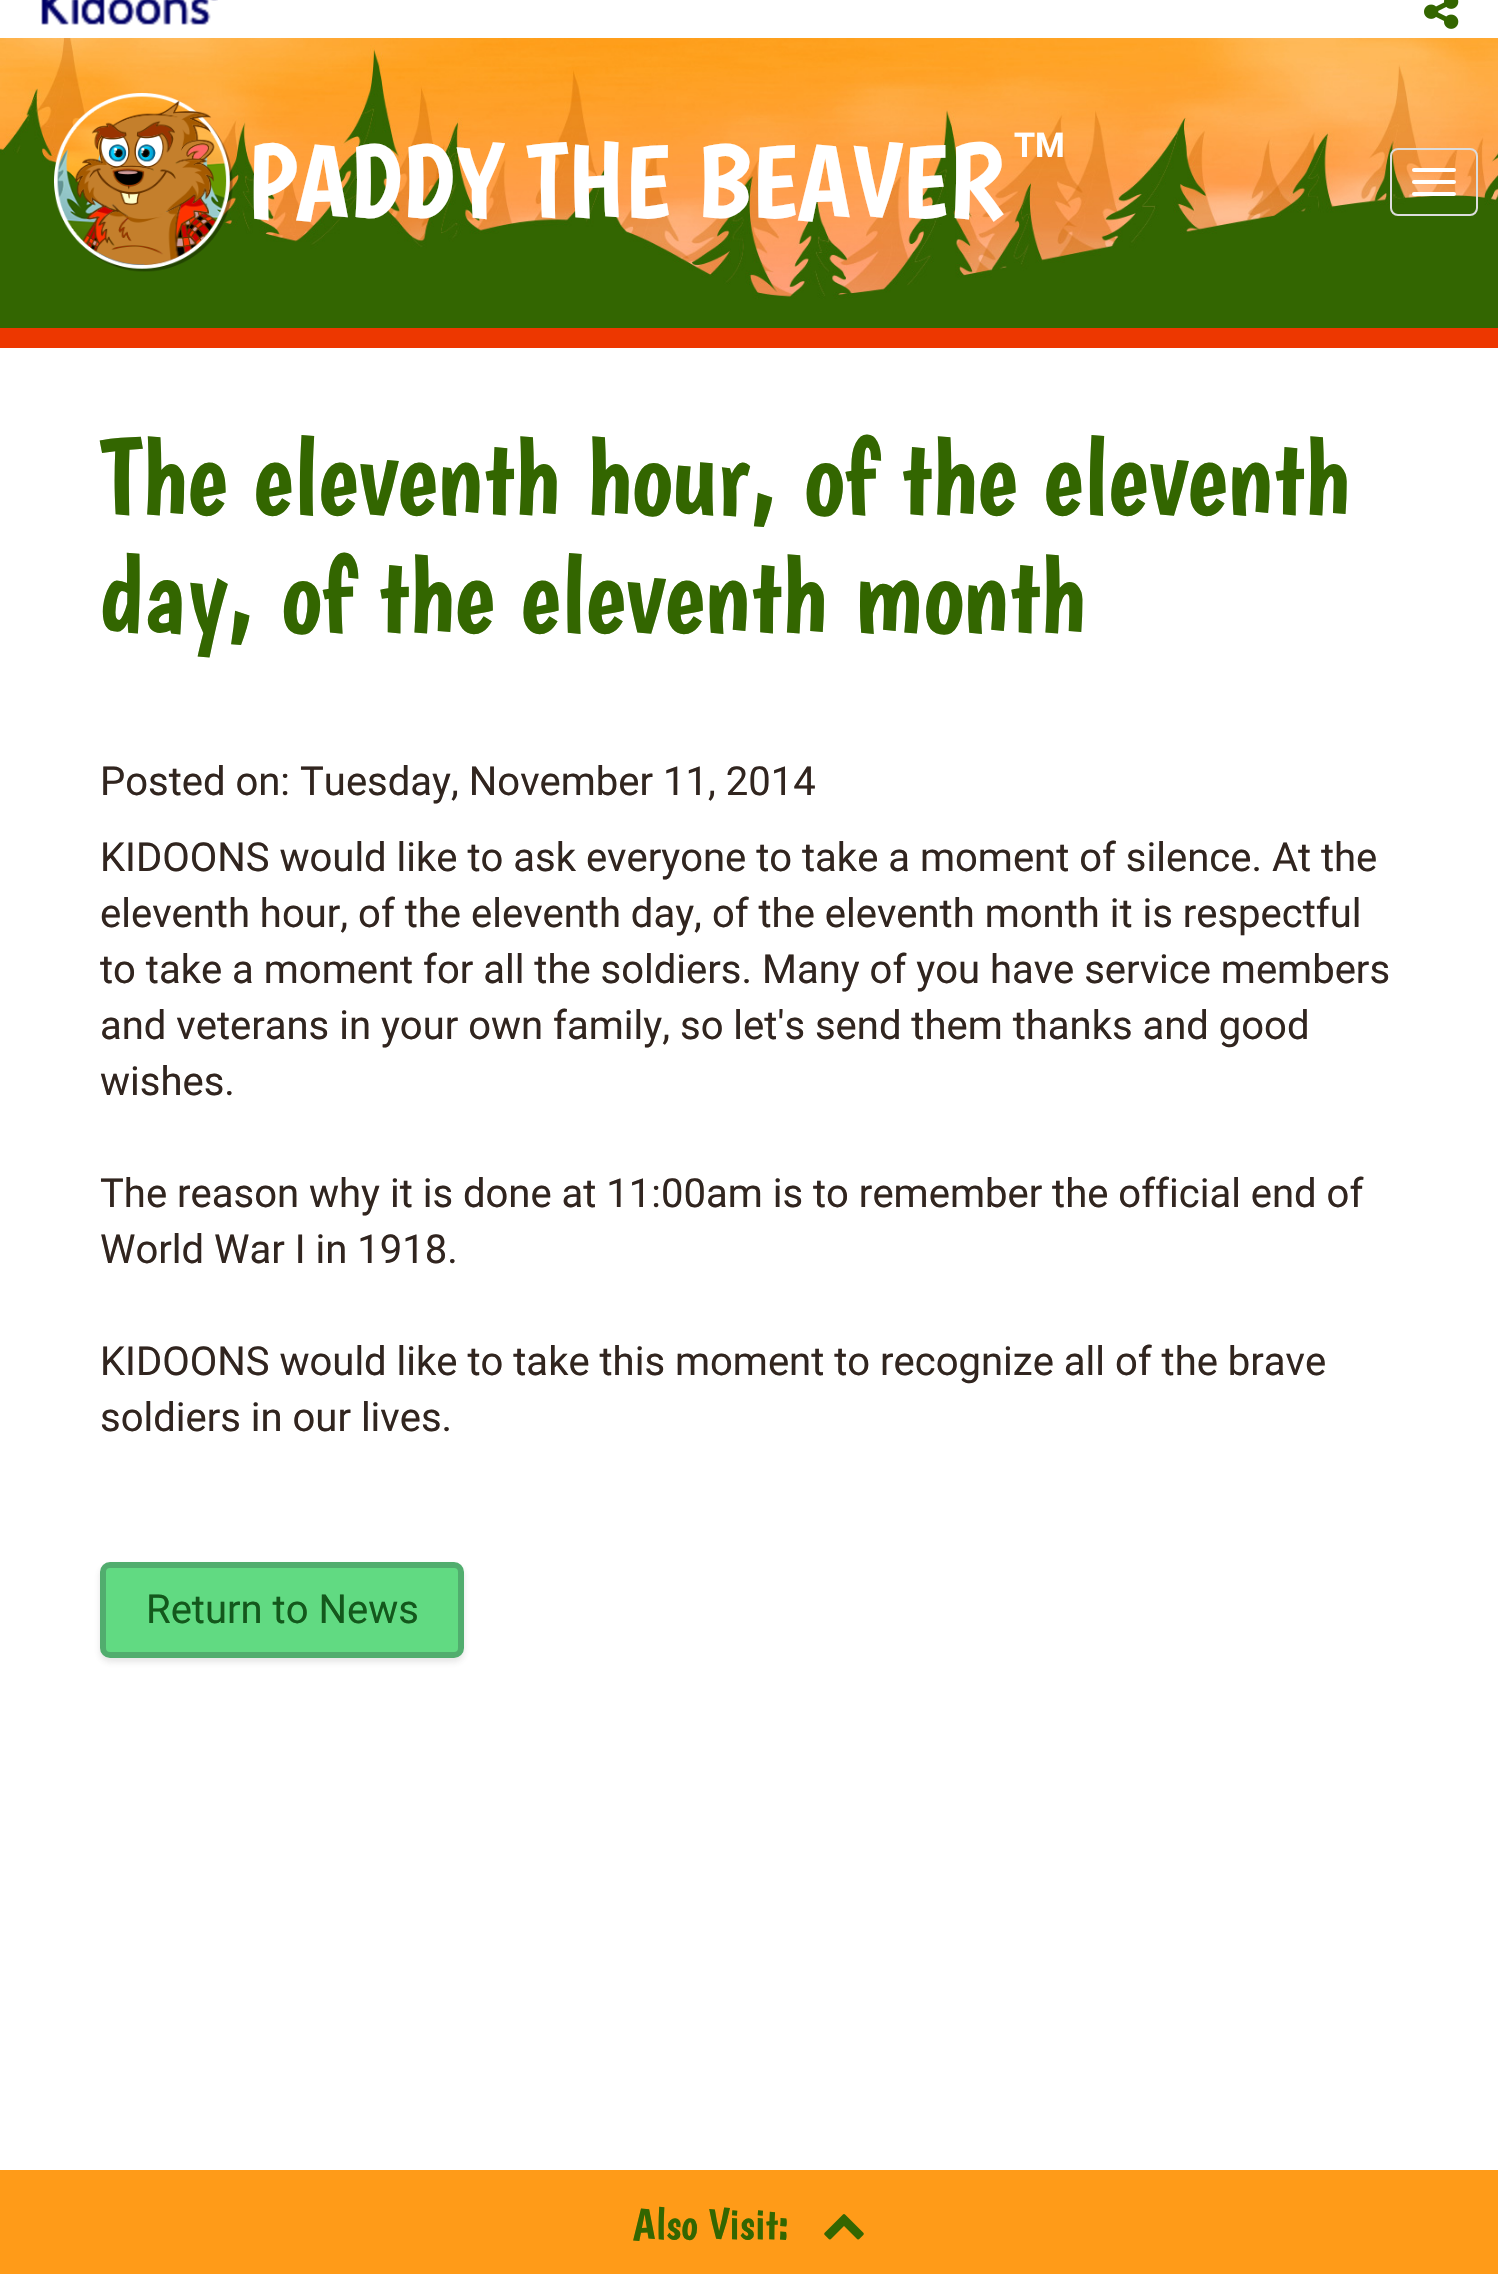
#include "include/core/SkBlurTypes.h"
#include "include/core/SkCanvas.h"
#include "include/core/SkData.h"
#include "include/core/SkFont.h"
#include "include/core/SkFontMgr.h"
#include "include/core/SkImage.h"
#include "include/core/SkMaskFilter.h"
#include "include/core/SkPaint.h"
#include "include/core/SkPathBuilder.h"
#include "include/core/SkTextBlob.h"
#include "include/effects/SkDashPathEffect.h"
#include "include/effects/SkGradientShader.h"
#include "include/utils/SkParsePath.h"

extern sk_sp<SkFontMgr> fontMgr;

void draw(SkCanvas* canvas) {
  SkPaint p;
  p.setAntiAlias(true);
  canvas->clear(SK_ColorWHITE);
  canvas->drawImageRect(SkImages::DeferredFromEncodedData(SkData::MakeFromFileName("images/1.png")), SkRect::MakeLTRB(41, 0, 218, 25), SkSamplingOptions());
  canvas->drawImageRect(SkImages::DeferredFromEncodedData(SkData::MakeFromFileName("images/2.png")), SkRect::MakeLTRB(1424, 0, 1459, 29), SkSamplingOptions());
  canvas->drawImageRect(SkImages::DeferredFromEncodedData(SkData::MakeFromFileName("images/3.png")), SkRect::MakeLTRB(0, 38, 1498, 328), SkSamplingOptions());
  p.setColor(SkColorSetRGB(237, 55, 0));
  canvas->drawRect(SkRect::MakeLTRB(0, 328, 1498, 348), p);
  canvas->drawImageRect(SkImages::DeferredFromEncodedData(SkData::MakeFromFileName("images/4.png")), SkRect::MakeLTRB(0, 92, 1498, 297), SkSamplingOptions());
  canvas->drawImageRect(SkImages::DeferredFromEncodedData(SkData::MakeFromFileName("images/5.png")), SkRect::MakeLTRB(54, 93, 233, 272), SkSamplingOptions());
  p.setStyle(SkPaint::kStroke_Style);
  p.setStrokeWidth(2);
  p.setColor(SkColorSetRGB(221, 221, 221));
  canvas->drawRoundRect(SkRect::MakeLTRB(1391, 149, 1477, 215), 7, 7, p);
  p.setStyle(SkPaint::kFill_Style);
  p.setColor(SK_ColorWHITE);
  canvas->drawRoundRect(SkRect::MakeLTRB(1412, 168, 1456, 172), 2, 2, p);
  canvas->drawRoundRect(SkRect::MakeLTRB(1412, 180, 1456, 184), 2, 2, p);
  canvas->drawRoundRect(SkRect::MakeLTRB(1412, 192, 1456, 196), 2, 2, p);
  p.setColor(SkColorSetARGB(36, 68, 68, 68));
  p.setMaskFilter(SkMaskFilter::MakeBlur(kNormal_SkBlurStyle, 3));
  canvas->drawRoundRect(SkRect::MakeLTRB(100, 1566, 464, 1662), 10, 10, p);
  p.setMaskFilter(nullptr);
  p.setColor(SkColorSetRGB(97, 218, 130));
  canvas->drawRoundRect(SkRect::MakeLTRB(103, 1565, 461, 1655), 7, 7, p);
  p.setStyle(SkPaint::kStroke_Style);
  p.setStrokeWidth(6);
  p.setColor(SkColorSetRGB(81, 173, 110));
  canvas->drawRoundRect(SkRect::MakeLTRB(103, 1565, 461, 1655), 7, 7, p);
  p.setStyle(SkPaint::kFill_Style);
  p.setColor(SkColorSetRGB(255, 155, 24));
  canvas->drawRect(SkRect::MakeLTRB(0, 2170, 1498, 2274), p);
  canvas->drawImageRect(SkImages::DeferredFromEncodedData(SkData::MakeFromFileName("images/6.png")), SkRect::MakeLTRB(824, 2214, 864, 2240), SkSamplingOptions());
  SkFont font1(fontMgr->matchFamilyStyle("Boogaloo", SkFontStyle::Normal()), 104.75f);
  font1.setSubpixel(true);
  p.setColor(SK_ColorWHITE);
  canvas->drawString("PADDY THE BEAVER", 247, 217, font1, p);
  SkFont font2(fontMgr->matchFamilyStyle("Roboto", SkFontStyle::Bold()), 34);
  font2.setSubpixel(true);
  canvas->drawString("TM", 1014, 157, font2, p);
  SkFont font3(fontMgr->matchFamilyStyle("Boogaloo", SkFontStyle::Normal()), 108);
  font3.setSubpixel(true);
  p.setColor(SkColorSetRGB(51, 102, 0));
  canvas->drawString("The eleventh hour, of the eleventh", 100, 514, font3, p);
  canvas->drawString("day, of the eleventh month", 100, 632, font3, p);
  SkFont font4(fontMgr->matchFamilyStyle("Roboto", SkFontStyle::Normal()), 40);
  font4.setSubpixel(true);
  p.setColor(SkColorSetRGB(49, 37, 31));
  canvas->drawString("Posted on: Tuesday, November 11, 2014", 100, 795, font4, p);
  canvas->drawString("KIDOONS would like to ask everyone to take a moment of silence. At the", 100, 871, font4, p);
  canvas->drawString("eleventh hour, of the eleventh day, of the eleventh month it is respectful", 100, 927, font4, p);
  canvas->drawString("to take a moment for all the soldiers. Many of you have service members", 100, 983, font4, p);
  canvas->drawString("and veterans in your own family, so let's send them thanks and good", 100, 1039, font4, p);
  canvas->drawString("wishes.", 100, 1095, font4, p);
  canvas->drawString("The reason why it is done at 11:00am is to remember the official end of", 100, 1207, font4, p);
  canvas->drawString("World War I in 1918.", 100, 1263, font4, p);
  canvas->drawString("KIDOONS would like to take this moment to recognize all of the brave", 100, 1375, font4, p);
  canvas->drawString("soldiers in our lives.", 100, 1431, font4, p);
  p.setColor(SkColorSetRGB(19, 88, 28));
  canvas->drawString("Return to News", 146, 1623, font4, p);
  SkFont font5(fontMgr->matchFamilyStyle("Boogaloo", SkFontStyle::Normal()), 44);
  font5.setSubpixel(true);
  p.setColor(SkColorSetRGB(51, 102, 0));
  canvas->drawString("Also Visit:", 633, 2239, font5, p);
}
